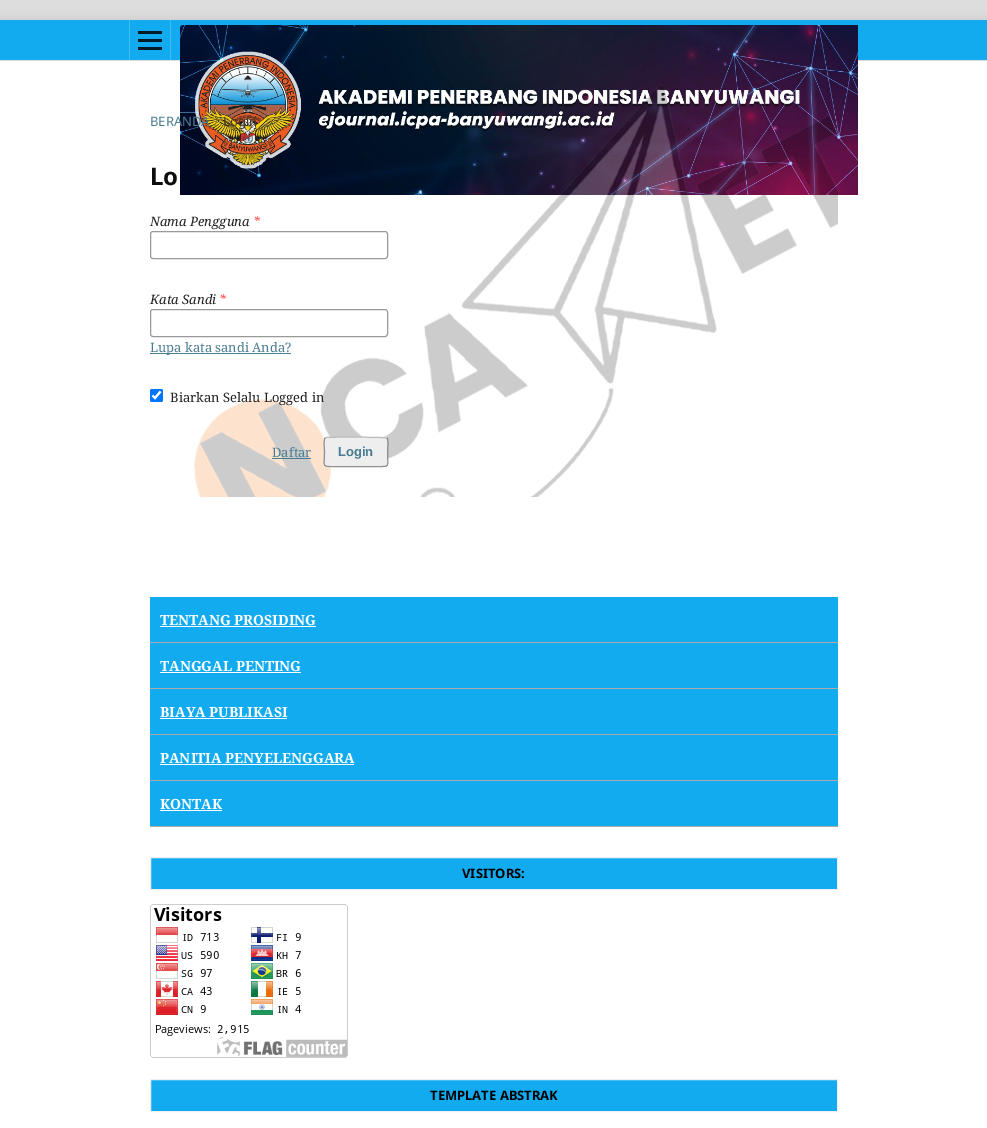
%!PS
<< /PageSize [987 1128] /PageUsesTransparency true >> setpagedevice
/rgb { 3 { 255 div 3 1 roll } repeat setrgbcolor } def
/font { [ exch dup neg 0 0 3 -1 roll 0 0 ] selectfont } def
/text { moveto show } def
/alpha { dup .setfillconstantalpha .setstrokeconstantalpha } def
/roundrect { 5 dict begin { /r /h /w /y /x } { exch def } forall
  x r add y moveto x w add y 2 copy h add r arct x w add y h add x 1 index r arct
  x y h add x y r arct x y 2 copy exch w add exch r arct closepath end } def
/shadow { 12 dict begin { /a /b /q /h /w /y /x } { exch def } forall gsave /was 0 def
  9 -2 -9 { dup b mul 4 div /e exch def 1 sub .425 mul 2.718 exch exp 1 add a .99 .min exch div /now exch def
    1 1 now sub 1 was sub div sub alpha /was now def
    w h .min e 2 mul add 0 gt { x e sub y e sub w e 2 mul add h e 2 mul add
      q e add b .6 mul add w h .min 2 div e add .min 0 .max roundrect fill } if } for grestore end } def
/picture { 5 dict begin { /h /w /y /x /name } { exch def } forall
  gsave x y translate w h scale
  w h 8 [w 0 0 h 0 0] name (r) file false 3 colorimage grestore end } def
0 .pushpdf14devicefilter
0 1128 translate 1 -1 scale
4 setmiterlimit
221 221 221 rgb
0 0 987 1128 rectfill
0 0 0 rgb
0 20 987 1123 0 5 0.1 shadow
255 255 255 rgb
0 61 987 1067 rectfill
19 171 239 rgb
0 20 987 40 rectfill
221 221 221 rgb
0 60 987 1 rectfill
66 188 242 rgb
129 20 1 40 rectfill
170 20 1 40 rectfill
3 27 38 rgb
138 47 24 3 rectfill
138 31 24 3 rectfill
138 39 24 3 rectfill
(img_01.rgb) 180 25 678 170 picture
(img_02.rgb) 194 84 644 413 picture
153 153 153 rgb
150.5 231.5 237 27 2.5 roundrect stroke
150.5 309.5 237 27 2.5 roundrect stroke
75 125 146 rgb
150 353 141 1 rectfill
0 117 255 rgb
150 389 13 13 2 roundrect fill
255 255 255 rgb
2.1 setlinewidth
152.5 395.5 moveto 2.5 2.5 rlineto 5.5 -6.5 rlineto stroke
75 125 146 rgb
272 458 39 1 rectfill
238 238 238 rgb
324 437 64 30 3 roundrect fill
187 187 187 rgb
1 setlinewidth
325 438 moveto 2 -0.5 rlineto 5 -0.5 58.5 -0.5 59.5 0.5 rcurveto 0.5 0 rlineto stroke
0.4 alpha
0 0 0 rgb
387 438 moveto 1.5 2 0.5 11.5 0.5 14 rcurveto 0 16 3.5 14.5 -12 14.5 rcurveto -39 0 rlineto -15.5 0 -12 1.5 -12 -14.5 rcurveto 0 -2.5 -1 -12 0.5 -14 rcurveto stroke
1 alpha
19 171 239 rgb
150 597 688 45 rectfill
170 170 170 rgb
150 642 688 1 rectfill
255 255 255 rgb
160 626 156 1 rectfill
19 171 239 rgb
150 643 688 45 rectfill
170 170 170 rgb
150 688 688 1 rectfill
255 255 255 rgb
160 672 141 1 rectfill
19 171 239 rgb
150 689 688 45 rectfill
170 170 170 rgb
150 734 688 1 rectfill
255 255 255 rgb
160 718 127 1 rectfill
19 171 239 rgb
150 735 688 45 rectfill
170 170 170 rgb
150 780 688 1 rectfill
255 255 255 rgb
160 764 194 1 rectfill
19 171 239 rgb
150 781 688 45 rectfill
170 170 170 rgb
150 826 688 1 rectfill
255 255 255 rgb
160 810 62 1 rectfill
19 171 239 rgb
150.5 857.5 moveto 687 0 rlineto 0 32 rlineto -687 0 rlineto closepath gsave fill grestore
236 239 245 rgb
stroke
(img_03.rgb) 150 904 198 154 picture
19 171 239 rgb
150.5 1079.5 moveto 687 0 rlineto 0 32 rlineto -687 0 rlineto closepath gsave fill grestore
236 239 245 rgb
stroke
/NotoSans-Regular 13 font
75 125 146 rgb
(BERANDA) 150 126 text
148 126 21 rgb
(/) 214 126 text
74 58 33 rgb
(Login) 223 126 text
/NotoSans-Bold 24 font
13 13 16 rgb
(Lo) 150 185 text
/NotoSerif-Italic 13 font
33 33 33 rgb
(Nama Pengguna) 150 226 text
255 64 64 rgb
(*) 253 226 text
33 33 33 rgb
(Kata Sandi) 150 304 text
255 64 64 rgb
(*) 219 304 text
/NotoSerif-Regular 13 font
75 125 146 rgb
(Lupa kata sandi Anda?) 150 352 text
33 33 33 rgb
(Biarkan Selalu Logged in) 170 402 text
75 125 146 rgb
(Daftar) 272 457 text
/LiberationSans-Bold 13 font
(Login) 338 456 text
/NotoSerif-Bold 14 font
255 255 255 rgb
(TENTANG PROSIDING) 160 625 text
(TANGGAL PENTING) 160 671 text
(BIAYA PUBLIKASI) 160 717 text
(PANITIA PENYELENGGARA) 160 763 text
(KONTAK) 160 809 text
/NotoSans-Bold 13 font
0 0 0 rgb
(VISITORS:) 462 878 text
(TEMPLATE ABSTRAK) 430 1100 text
.poppdf14devicefilter showpage
